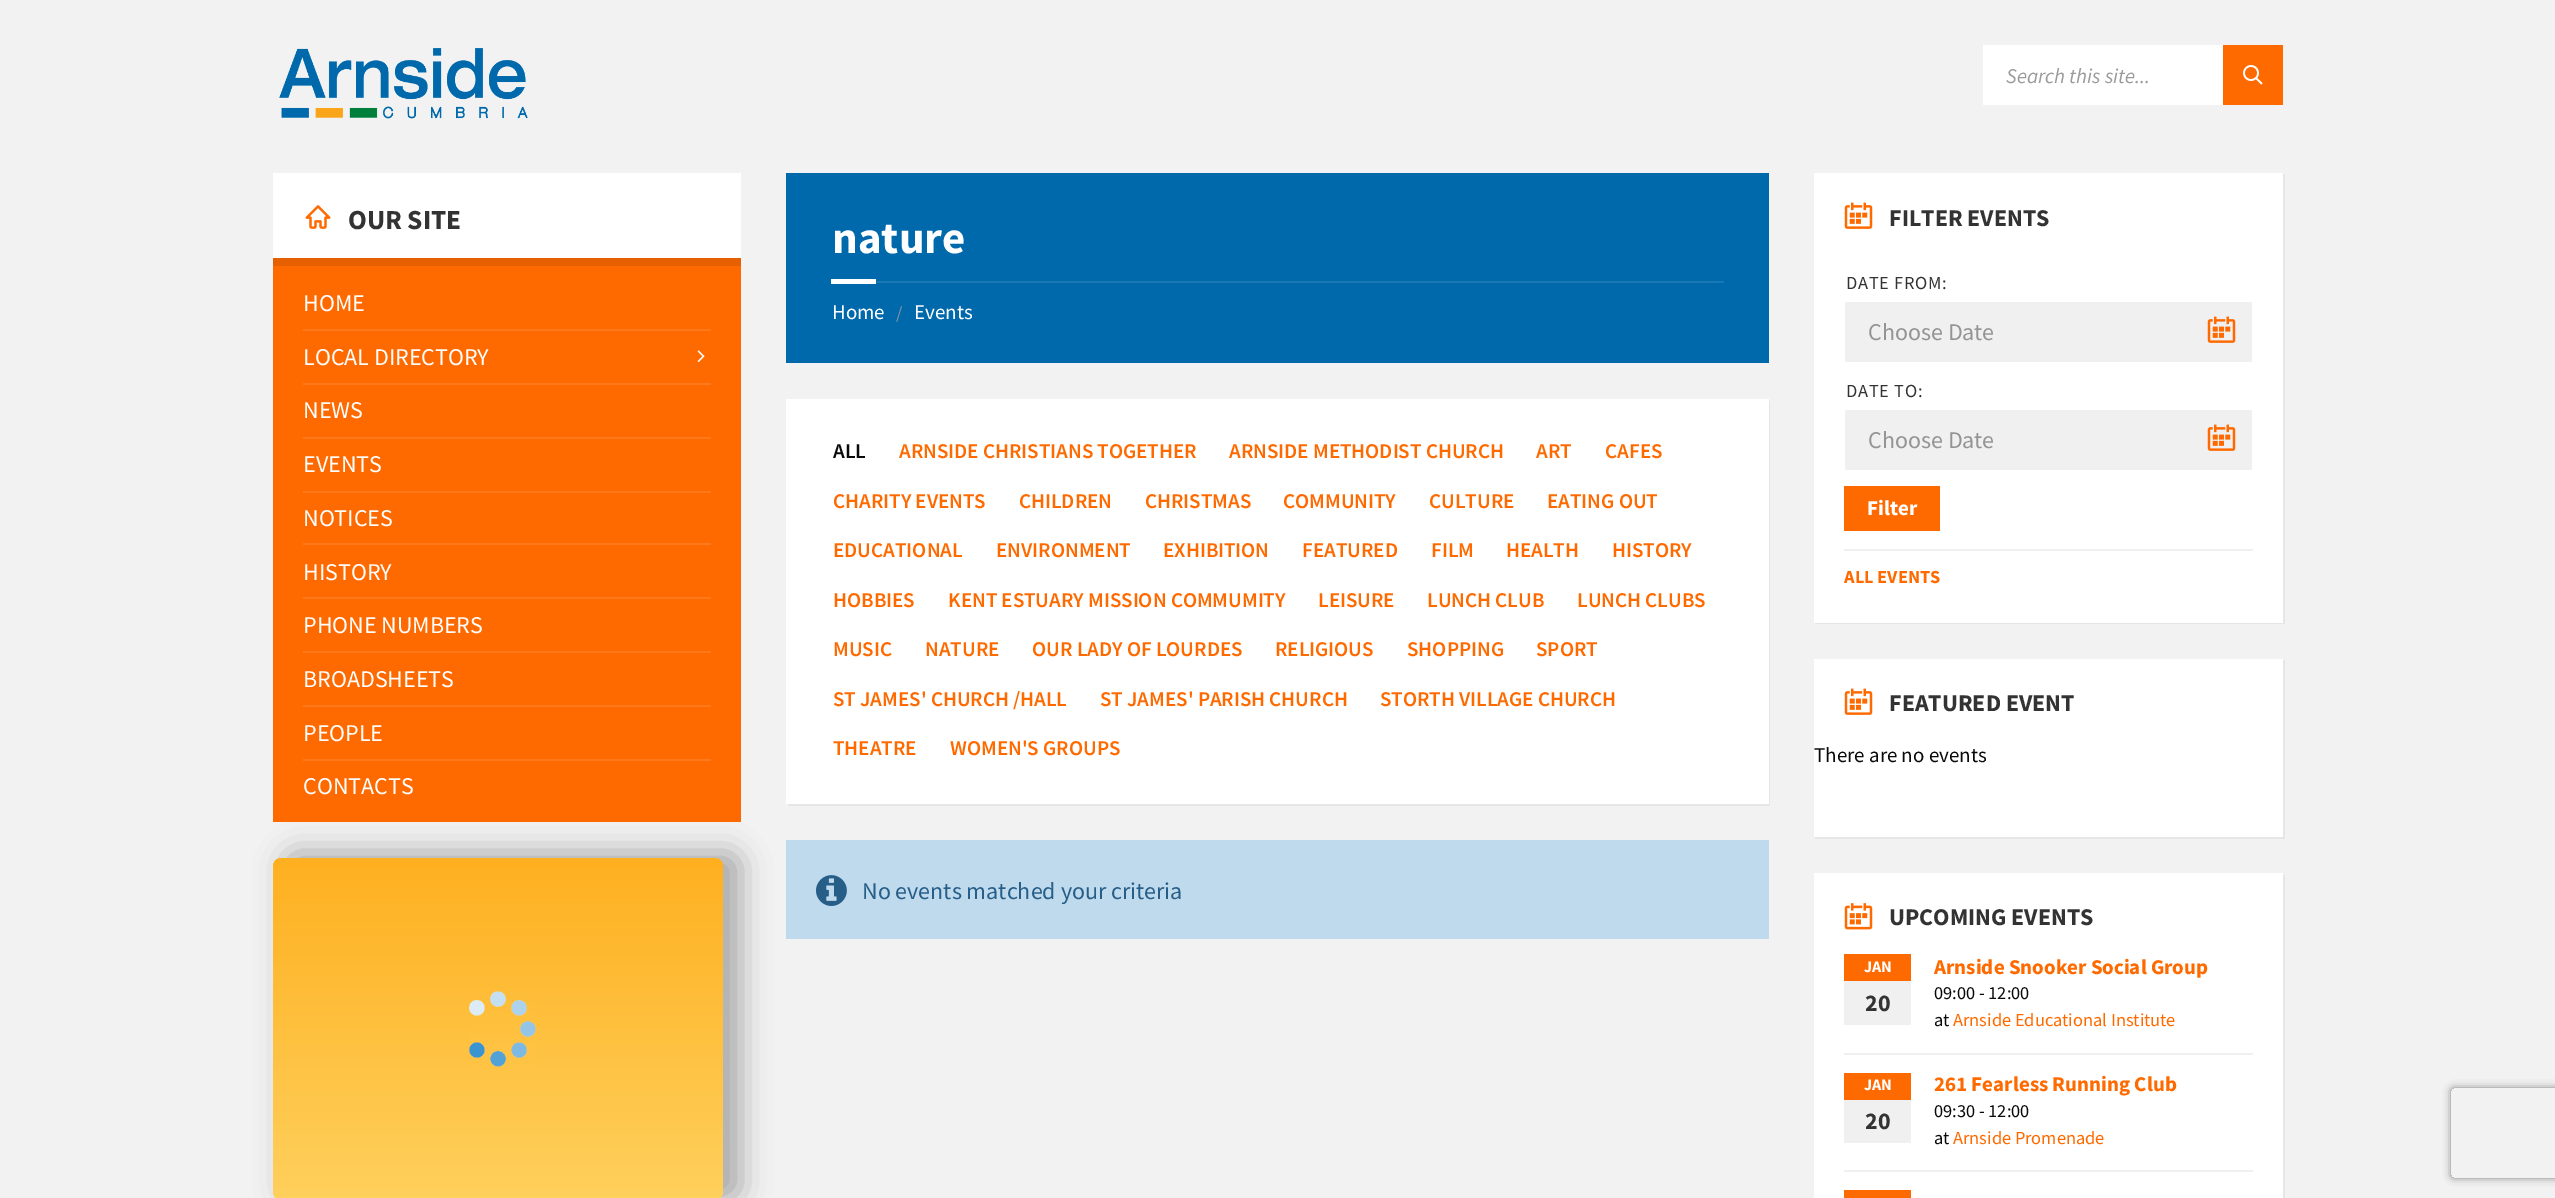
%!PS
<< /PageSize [2555 1198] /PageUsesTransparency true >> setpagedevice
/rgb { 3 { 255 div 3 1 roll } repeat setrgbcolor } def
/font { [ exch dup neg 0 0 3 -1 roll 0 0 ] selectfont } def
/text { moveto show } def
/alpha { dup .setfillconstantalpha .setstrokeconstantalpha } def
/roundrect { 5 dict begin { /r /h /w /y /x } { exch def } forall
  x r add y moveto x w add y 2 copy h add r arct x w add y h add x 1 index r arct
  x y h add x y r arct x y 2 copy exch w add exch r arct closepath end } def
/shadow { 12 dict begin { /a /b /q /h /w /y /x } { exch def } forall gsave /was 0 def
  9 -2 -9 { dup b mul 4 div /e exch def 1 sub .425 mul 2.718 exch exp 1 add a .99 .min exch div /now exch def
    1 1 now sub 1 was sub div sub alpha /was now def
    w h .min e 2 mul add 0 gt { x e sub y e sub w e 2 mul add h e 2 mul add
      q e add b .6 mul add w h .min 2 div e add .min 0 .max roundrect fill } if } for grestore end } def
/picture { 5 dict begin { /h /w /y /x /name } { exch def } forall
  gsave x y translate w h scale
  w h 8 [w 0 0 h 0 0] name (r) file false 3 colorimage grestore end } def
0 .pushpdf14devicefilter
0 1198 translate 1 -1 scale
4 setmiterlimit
242 242 242 rgb
0 0 2555 1198 rectfill
(img_01.rgb) 279 48 249 71 picture
255 255 255 rgb
1983 45 240 60 rectfill
255 106 0 rgb
2223 45 60 60 rectfill
(img_02.rgb) 2243 65 20 20 picture
255 255 255 rgb
273 173 468 85 rectfill
(img_03.rgb) 305 205 26 24 picture
255 106 0 rgb
273 266 468 556 rectfill
230 95 0 rgb
273 258 468 8 rectfill
255 121 26 rgb
303 329 408 2 rectfill
(img_04.rgb) 697 350 8 13 picture
303 383 408 2 rectfill
303 437 408 2 rectfill
303 491 408 2 rectfill
303 543 408 2 rectfill
303 597 408 2 rectfill
303 651 408 2 rectfill
303 705 408 2 rectfill
303 759 408 2 rectfill
192 218 237 rgb
786 840 983 99 rectfill
0 0 0 rgb
285 852 456 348 12 15 0.3 shadow
gsave 273 858 450 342 9 roundrect clip newpath
<< /ShadingType 2 /ColorSpace /DeviceRGB /Coords [498 858 498 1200] /Extend [true true] /Function << /FunctionType 2 /Domain [0 1] /C0 [0.996 0.69 0.125] /C1 [1 0.816 0.361] /N 1 >> >> shfill grestore
(img_05.rgb) 469 991 67 76 picture
0 105 172 rgb
786 173 983 190 rectfill
26 120 180 rgb
876 281 848 2 rectfill
255 255 255 rgb
831 279 45 5 rectfill
230 230 230 rgb
788 804 moveto 0 2 rlineto 982 0 rlineto 0 -405 rlineto -2 0 rlineto 0 403 rlineto closepath fill
255 255 255 rgb
786 399 983 405 rectfill
(img_06.rgb) 816 875 31 31 picture
230 230 230 rgb
1815 622 moveto 0 2 rlineto 470 0 rlineto 0 -450 rlineto -2 0 rlineto 0 448 rlineto closepath fill
255 255 255 rgb
1814 173 469 450 rectfill
(img_07.rgb) 1844 202 29 27 picture
240 240 240 rgb
1845 302 407 60 rectfill
(img_08.rgb) 2207 316 29 27 picture
1845 410 407 60 rectfill
(img_08.rgb) 2207 424 29 27 picture
255 106 0 rgb
1844 486 96 45 rectfill
240 240 240 rgb
1844 549 409 2 rectfill
230 230 230 rgb
1815 837 moveto 0 2 rlineto 470 0 rlineto 0 -179 rlineto -2 0 rlineto 0 177 rlineto closepath fill
255 255 255 rgb
1814 659 469 178 rectfill
(img_07.rgb) 1844 688 29 27 picture
230 230 230 rgb
1815 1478 moveto 0 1 rlineto 470 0 rlineto 0 -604 rlineto -2 0 rlineto 0 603 rlineto closepath fill
255 255 255 rgb
1814 873 469 325 rectfill
(img_09.rgb) 1844 903 29 27 picture
255 106 0 rgb
1844 954 67 27 rectfill
240 240 240 rgb
1844 981 67 44 rectfill
1844 1053 409 2 rectfill
255 106 0 rgb
1844 1073 67 27 rectfill
240 240 240 rgb
1844 1100 67 43 rectfill
1844 1170 409 2 rectfill
255 106 0 rgb
1844 1190 67 8 rectfill
gsave
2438 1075 moveto 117 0 rlineto 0 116 rlineto -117 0 rlineto closepath 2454 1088 moveto 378 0 rlineto 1.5 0 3 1.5 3 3 rcurveto 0 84 rlineto 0 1.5 -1.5 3 -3 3 rcurveto -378 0 rlineto -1.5 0 -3 -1.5 -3 -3 rcurveto 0 -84 rlineto 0 -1.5 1.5 -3 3 -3 rcurveto closepath eoclip newpath
128 128 128 rgb
2451 1088 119 90 3 4 1 shadow
grestore
/SourceSansPro-Italic 21 font
154 154 154 rgb
(Search this site...) 2006 83 text
/SourceSansPro-Bold 27.5 font
51 51 51 rgb
(OUR SITE) 348 229 text
/SourceSansPro-Regular 24 font
255 255 255 rgb
(HOME) 303 311 text
(LOCAL DIRECTORY) 303 365 text
(NEWS) 303 418 text
(EVENTS) 303 472 text
(NOTICES) 303 526 text
(HISTORY) 303 580 text
(PHONE NUMBERS) 303 633 text
(BROADSHEETS) 303 687 text
(PEOPLE) 303 741 text
(CONTACTS) 303 794 text
/SourceSansPro-Bold 45 font
(nature) 832 253 text
/SourceSansPro-Regular 21 font
(Home) 832 319 text
/SourceSansPro-Regular 18 font
138 148 155 rgb
(/) 896 319 text
/SourceSansPro-Regular 21 font
255 255 255 rgb
(Events) 914 319 text
/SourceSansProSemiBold-SemiBold 21 font
10 10 10 rgb
(ALL) 833 458 text
255 106 0 rgb
(ARNSIDE CHRISTIANS TOGETHER) 899 458 text
(ARNSIDE METHODIST CHURCH) 1229 458 text
(ART) 1536 458 text
(CAFES) 1605 458 text
(CHARITY EVENTS) 833 508 text
(CHILDREN) 1019 508 text
(CHRISTMAS) 1145 508 text
(COMMUNITY) 1283 508 text
(CULTURE) 1429 508 text
(EATING OUT) 1547 508 text
(EDUCATIONAL) 833 557 text
(ENVIRONMENT) 996 557 text
(EXHIBITION) 1163 557 text
(FEATURED) 1302 557 text
(FILM) 1431 557 text
(HEALTH) 1506 557 text
(HISTORY) 1612 557 text
(HOBBIES) 833 607 text
(KENT ESTUARY MISSION COMMUMITY) 948 607 text
(LEISURE) 1318 607 text
(LUNCH CLUB) 1427 607 text
(LUNCH CLUBS) 1577 607 text
(MUSIC) 833 656 text
(NATURE) 925 656 text
(OUR LADY OF LOURDES) 1032 656 text
(RELIGIOUS) 1275 656 text
(SHOPPING) 1407 656 text
(SPORT) 1536 656 text
(ST JAMES' CHURCH /HALL) 833 706 text
(ST JAMES' PARISH CHURCH) 1100 706 text
(STORTH VILLAGE CHURCH) 1380 706 text
(THEATRE) 833 755 text
(WOMEN'S GROUPS) 950 755 text
/SourceSansPro-Regular 24 font
38 94 136 rgb
(No events matched your criteria) 862 899 text
/SourceSansPro-Bold 24 font
51 51 51 rgb
(FILTER EVENTS) 1889 226 text
/SourceSansPro-Regular 18.4 font
1846 289 moveto 0.75 0 (DATE FROM:) ashow
/SourceSansPro-Regular 24 font
148 148 148 rgb
(Choose Date) 1868 340 text
/SourceSansPro-Regular 18.4 font
51 51 51 rgb
1846 397 moveto 0.75 0 (DATE TO:) ashow
/SourceSansPro-Regular 24 font
148 148 148 rgb
(Choose Date) 1868 448 text
/SourceSansPro-Bold 21 font
255 255 255 rgb
(Filter) 1867 515 text
/SourceSansPro-Bold 18.4 font
255 106 0 rgb
(ALL EVENTS) 1844 583 text
/SourceSansPro-Bold 24 font
51 51 51 rgb
(FEATURED EVENT) 1889 711 text
/SourceSansPro-Regular 21 font
10 10 10 rgb
(There are no events) 1814 762 text
/SourceSansPro-Bold 24 font
51 51 51 rgb
(UPCOMING EVENTS) 1889 925 text
/SourceSansPro-Bold 16 font
255 255 255 rgb
(JAN) 1864 972 text
/SourceSansPro-Bold 24 font
51 51 51 rgb
(20) 1865 1011 text
/SourceSansPro-Bold 21 font
255 106 0 rgb
(Arnside Snooker Social Group) 1934 974 text
/SourceSansPro-Regular 18.4 font
10 10 10 rgb
(09:00 - 12:00) 1934 999 text
(at) 1934 1026 text
255 106 0 rgb
(Arnside Educational Institute) 1953 1026 text
/SourceSansPro-Bold 16 font
255 255 255 rgb
(JAN) 1864 1090 text
/SourceSansPro-Bold 24 font
51 51 51 rgb
(20) 1865 1129 text
/SourceSansPro-Bold 21 font
255 106 0 rgb
(261 Fearless Running Club) 1934 1091 text
/SourceSansPro-Regular 18.4 font
10 10 10 rgb
(09:30 - 12:00) 1934 1117 text
(at) 1934 1144 text
255 106 0 rgb
(Arnside Promenade) 1953 1144 text
.poppdf14devicefilter showpage
